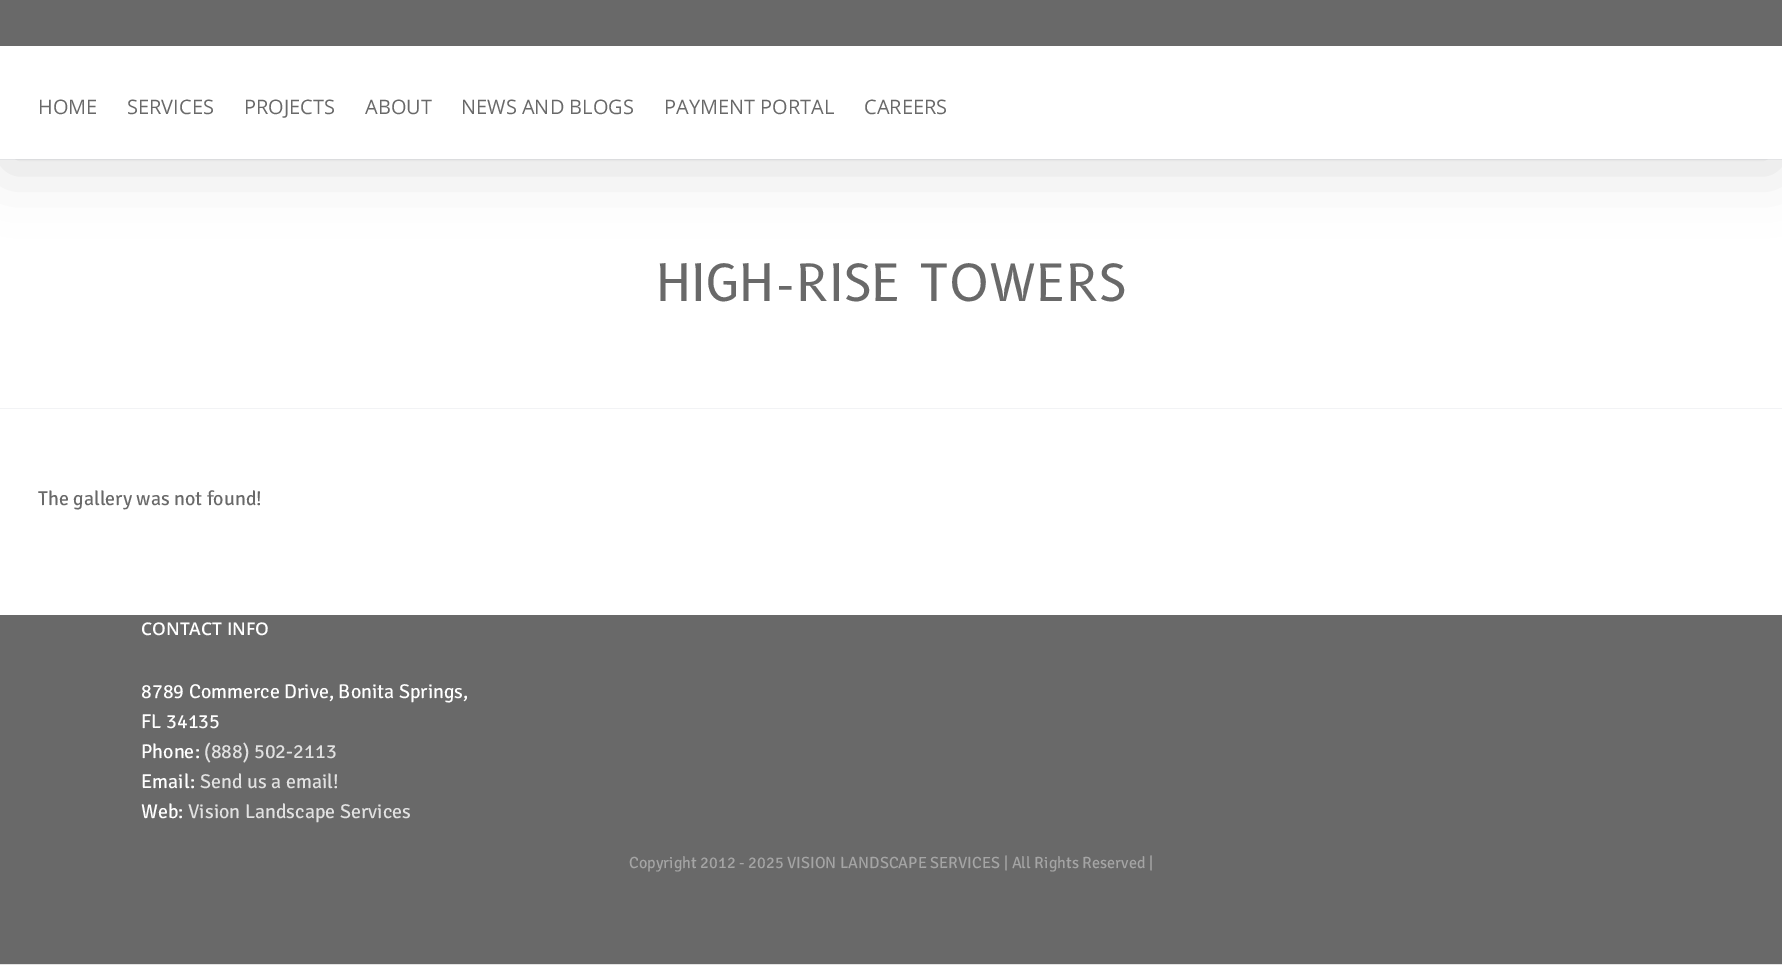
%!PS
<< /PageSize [1782 965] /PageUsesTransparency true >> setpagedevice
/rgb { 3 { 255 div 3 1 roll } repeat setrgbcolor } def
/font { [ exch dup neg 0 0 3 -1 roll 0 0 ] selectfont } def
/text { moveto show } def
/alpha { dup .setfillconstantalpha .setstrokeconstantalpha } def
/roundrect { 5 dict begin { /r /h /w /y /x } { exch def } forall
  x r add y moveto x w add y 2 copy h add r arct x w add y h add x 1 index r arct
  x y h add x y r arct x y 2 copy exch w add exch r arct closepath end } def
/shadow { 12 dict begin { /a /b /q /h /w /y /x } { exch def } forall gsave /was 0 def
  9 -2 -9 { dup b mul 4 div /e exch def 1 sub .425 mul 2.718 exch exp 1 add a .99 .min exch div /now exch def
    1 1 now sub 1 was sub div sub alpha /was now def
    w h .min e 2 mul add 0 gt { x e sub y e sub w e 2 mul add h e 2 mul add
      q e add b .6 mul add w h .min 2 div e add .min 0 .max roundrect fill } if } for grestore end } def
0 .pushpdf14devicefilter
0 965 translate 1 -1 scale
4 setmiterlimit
226 226 226 rgb
0 0 1782 965 rectfill
255 255 255 rgb
0 160 1782 455 rectfill
242 243 245 rgb
0 159 1782 1 rectfill
0 0 0 rgb
3 15 1777 154 0 31 0.14 shadow
105 105 105 rgb
0 0 1782 46 rectfill
255 255 255 rgb
0 46 1782 113 rectfill
242 243 245 rgb
0 408 1782 1 rectfill
105 105 105 rgb
0 615 1782 349 rectfill
/OpenSans-Regular 20 font
(HOME) 38 114 text
(SERVICES) 127 114 text
(PROJECTS) 244 114 text
(ABOUT) 365 114 text
(NEWS AND BLOGS) 461 114 text
(PAYMENT PORTAL) 664 114 text
(CAREERS) 864 114 text
/B612-Regular 50 font
(HIGH-RISE TOWERS) 656 301 text
/SignikaNegative-Regular 20 font
(The gallery was not found!) 38 505 text
/OpenSans-SemiBold 17.5 font
255 255 255 rgb
(CONTACT INFO) 141 635 text
/SignikaNegative-Regular 20 font
(8789 Commerce Drive, Bonita Springs,) 141 698 text
(FL 34135) 141 728 text
(Phone:) 141 758 text
225 225 225 rgb
(\(888\) 502-2113) 204 758 text
255 255 255 rgb
(Email:) 141 788 text
225 225 225 rgb
(Send us a email!) 200 788 text
255 255 255 rgb
(Web:) 141 818 text
225 225 225 rgb
(Vision Landscape Services) 188 818 text
/SignikaNegative-Regular 16.25 font
165 165 165 rgb
(Copyright 2012 - 2025 VISION LANDSCAPE SERVICES | All Rights Reserved |) 629 868 text
.poppdf14devicefilter showpage
